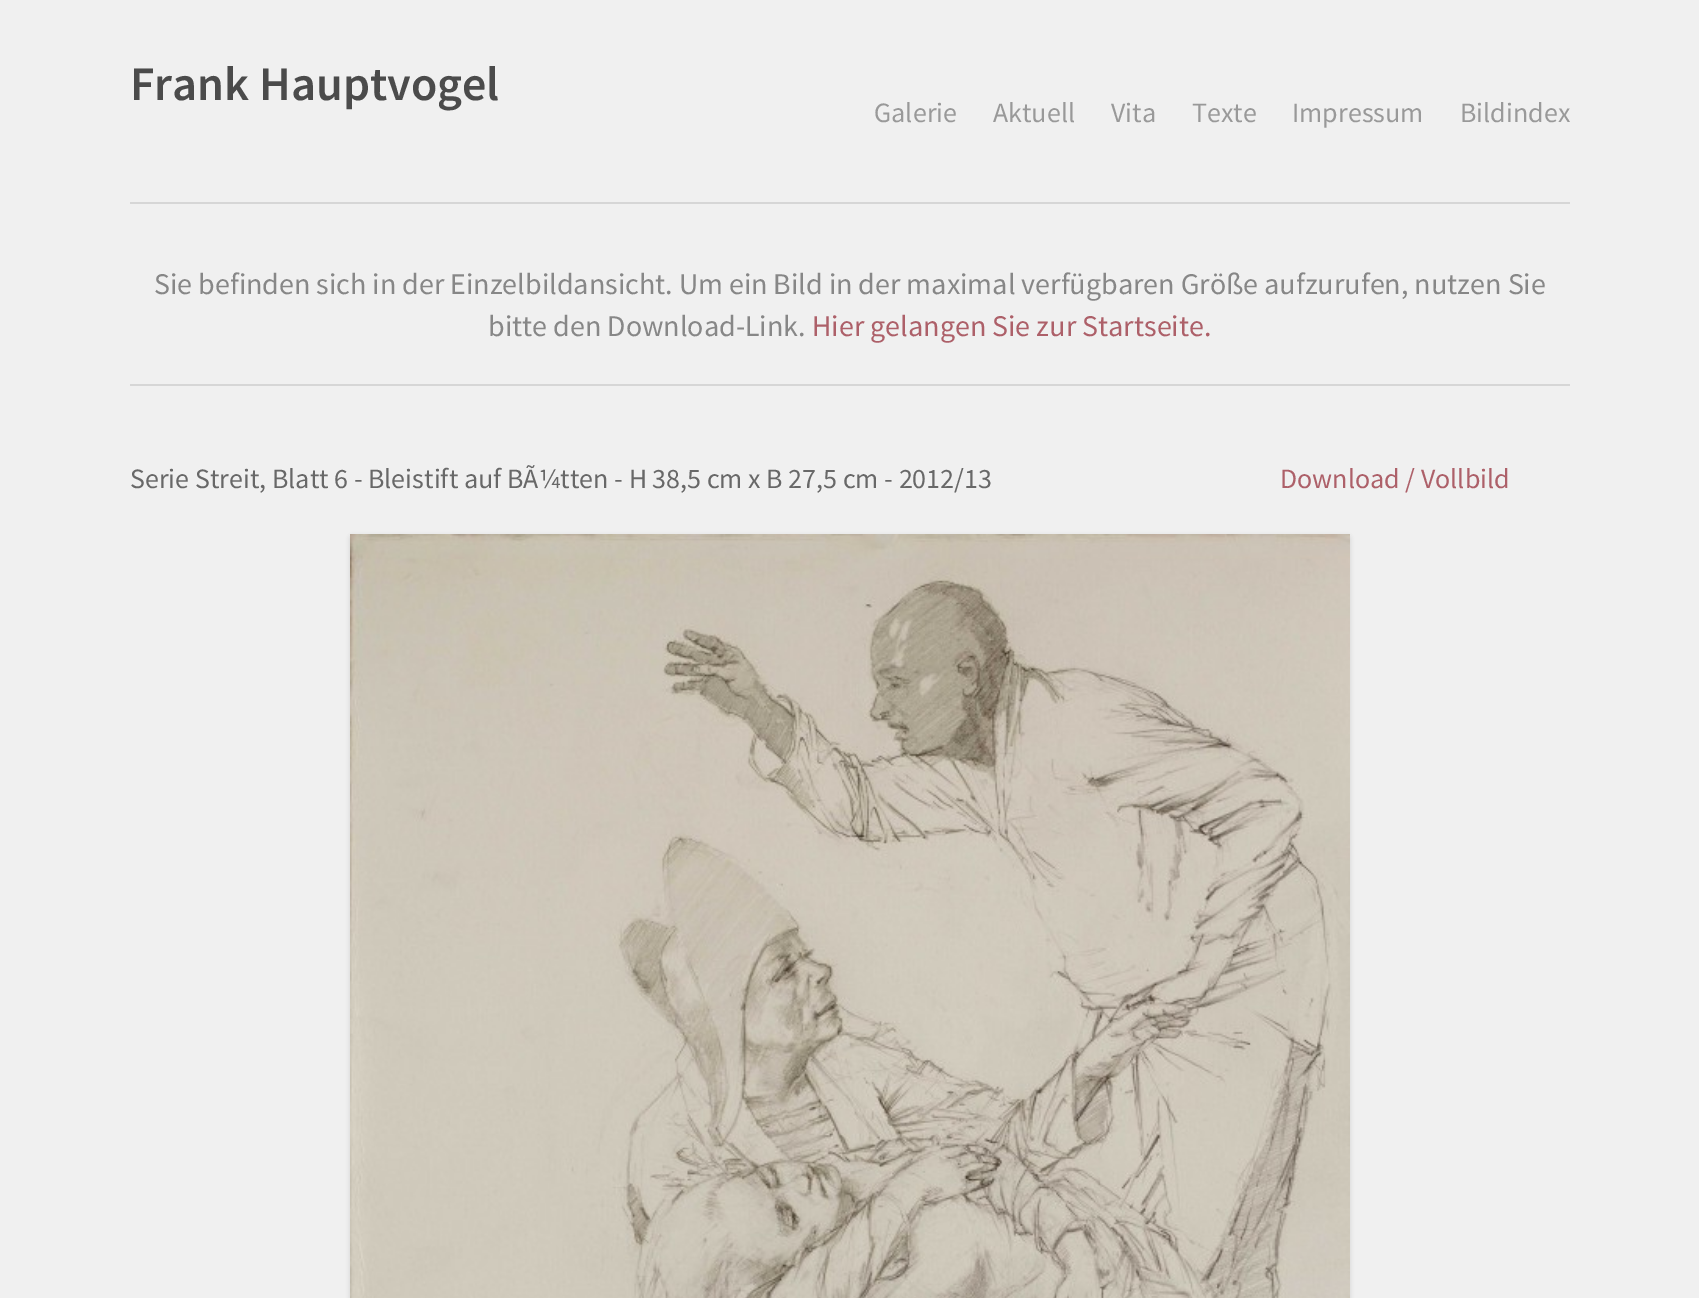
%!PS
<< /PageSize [1699 1298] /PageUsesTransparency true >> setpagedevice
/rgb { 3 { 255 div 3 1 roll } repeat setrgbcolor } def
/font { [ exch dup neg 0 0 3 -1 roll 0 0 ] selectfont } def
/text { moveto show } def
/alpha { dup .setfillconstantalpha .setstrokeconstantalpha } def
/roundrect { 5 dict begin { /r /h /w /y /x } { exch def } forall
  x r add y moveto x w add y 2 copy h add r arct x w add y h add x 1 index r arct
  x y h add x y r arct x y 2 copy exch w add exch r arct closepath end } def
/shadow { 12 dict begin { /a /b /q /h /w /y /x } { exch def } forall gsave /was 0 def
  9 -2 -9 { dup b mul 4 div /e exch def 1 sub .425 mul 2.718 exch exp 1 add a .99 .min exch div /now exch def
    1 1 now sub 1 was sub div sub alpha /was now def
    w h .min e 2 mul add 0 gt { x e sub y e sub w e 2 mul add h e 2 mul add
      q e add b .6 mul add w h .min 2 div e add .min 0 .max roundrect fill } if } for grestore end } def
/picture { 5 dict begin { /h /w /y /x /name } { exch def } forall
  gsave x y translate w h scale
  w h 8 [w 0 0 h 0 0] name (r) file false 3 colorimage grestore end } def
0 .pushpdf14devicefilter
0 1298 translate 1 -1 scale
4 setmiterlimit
240 240 240 rgb
0 0 1699 1298 rectfill
214 214 214 rgb
130 202 1440 2 rectfill
130 384 1440 2 rectfill
0 0 0 rgb
352 538 996 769 0 3 0.25 shadow
(img_01.rgb) 350 534 1000 764 picture
/SourceSansPro-SemiBold 48 font
75 75 75 rgb
(Frank Hauptvogel) 130 100 text
/SourceSansPro-Regular 28 font
153 153 153 rgb
(Galerie) 874 122 text
(Aktuell) 993 122 text
(Vita) 1111 122 text
(Texte) 1192 122 text
(Impressum) 1292 122 text
(Bildindex) 1460 122 text
/SourceSansPro-Regular 30 font
135 135 135 rgb
(Sie befinden sich in der Einzelbildansicht. Um ein Bild in der maximal verfügbaren Größe aufzurufen, nutzen Sie) 154 294 text
(bitte den Download-Link.) 488 336 text
173 96 105 rgb
(Hier gelangen Sie zur Startseite.) 812 336 text
/SourceSansPro-Regular 28 font
104 104 104 rgb
(Serie Streit, Blatt 6 - Bleistift auf BÃ¼tten - H 38,5 cm x B 27,5 cm - 2012/13) 130 488 text
173 96 105 rgb
(Download / Vollbild) 1280 488 text
.poppdf14devicefilter showpage
